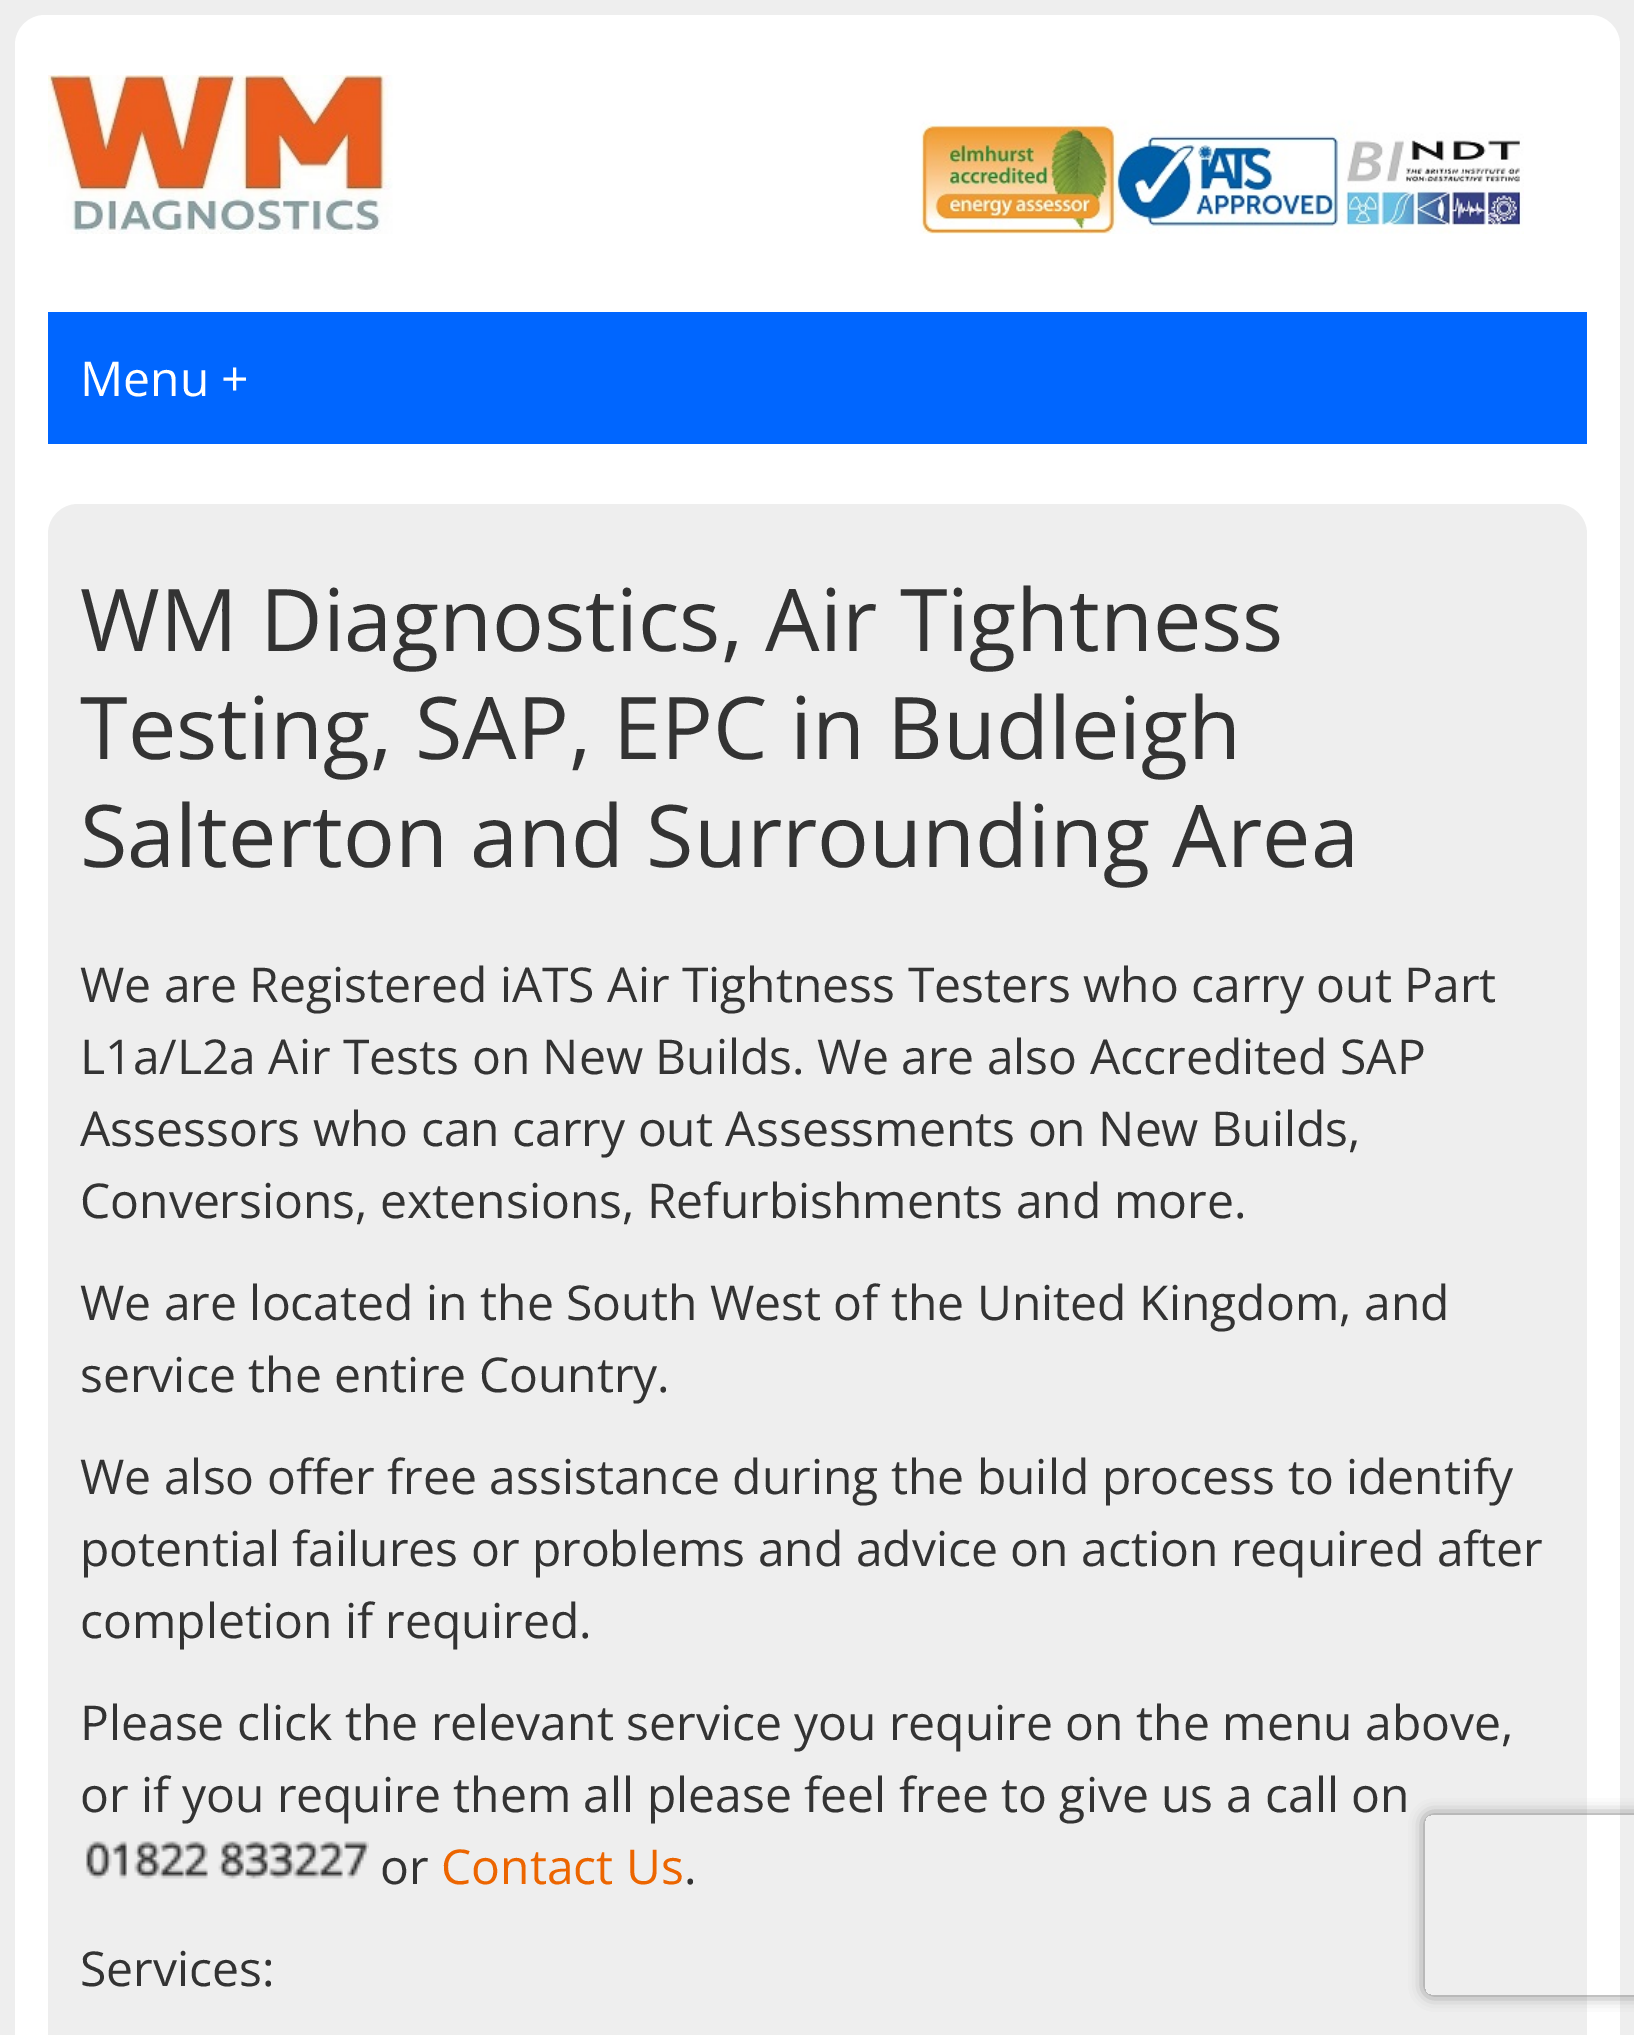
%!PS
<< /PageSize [1634 2035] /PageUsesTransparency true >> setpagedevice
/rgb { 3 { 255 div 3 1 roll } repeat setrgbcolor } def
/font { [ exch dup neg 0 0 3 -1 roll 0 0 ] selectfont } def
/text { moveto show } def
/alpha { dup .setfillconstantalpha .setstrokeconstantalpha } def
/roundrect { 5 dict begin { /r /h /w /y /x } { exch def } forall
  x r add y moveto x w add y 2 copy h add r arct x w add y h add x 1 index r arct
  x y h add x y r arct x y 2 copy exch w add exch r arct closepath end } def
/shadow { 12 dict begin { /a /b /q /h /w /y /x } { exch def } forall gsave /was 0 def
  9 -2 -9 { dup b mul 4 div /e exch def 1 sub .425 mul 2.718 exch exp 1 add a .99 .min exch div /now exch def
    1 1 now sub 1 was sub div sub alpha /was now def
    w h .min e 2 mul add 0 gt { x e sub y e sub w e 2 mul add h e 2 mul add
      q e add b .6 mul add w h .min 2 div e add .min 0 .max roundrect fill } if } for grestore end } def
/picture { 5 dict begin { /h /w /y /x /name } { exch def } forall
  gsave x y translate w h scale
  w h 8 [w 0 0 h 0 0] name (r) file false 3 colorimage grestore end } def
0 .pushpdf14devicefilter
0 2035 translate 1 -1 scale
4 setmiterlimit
238 238 238 rgb
0 0 1634 2035 rectfill
255 255 255 rgb
45 15 moveto 1545 0 rlineto 16.5 0 30 13.5 30 30 rcurveto 0 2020 rlineto -1605 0 rlineto 0 -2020 rlineto 0 -16.5 13.5 -30 30 -30 rcurveto closepath fill
(img_01.rgb) 48 75 1476 159 picture
0 102 255 rgb
48 312 1539 132 rectfill
238 238 238 rgb
78 504 moveto 1479 0 rlineto 16.5 0 30 13.5 30 30 rcurveto 0 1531 rlineto -1539 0 rlineto 0 -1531 rlineto 0 -16.5 13.5 -30 30 -30 rcurveto closepath fill
(img_02.rgb) 86 1841 283 38 picture
gsave
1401 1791 moveto 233 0 rlineto 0 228 rlineto -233 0 rlineto closepath 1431 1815 moveto 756 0 rlineto 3.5 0 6 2.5 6 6 rcurveto 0 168 rlineto 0 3.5 -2.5 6 -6 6 rcurveto -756 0 rlineto -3.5 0 -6 -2.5 -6 -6 rcurveto 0 -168 rlineto 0 -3.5 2.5 -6 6 -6 rcurveto closepath eoclip newpath
128 128 128 rgb
1425 1815 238 180 6 7.5 1 shadow
grestore
/OpenSans-Regular 48 font
255 255 255 rgb
(Menu +) 80 396 text
/OpenSans-Regular 86.4 font
51 51 51 rgb
(WM Diagnostics, Air Tightness) 80 651 text
(Testing, SAP, EPC in Budleigh) 80 759 text
(Salterton and Surrounding Area) 80 867 text
/OpenSans-Regular 48 font
(We are Registered iATS Air Tightness Testers who carry out Part) 80 1002 text
(L1a/L2a Air Tests on New Builds. We are also Accredited SAP) 80 1074 text
(Assessors who can carry out Assessments on New Builds,) 80 1146 text
(Conversions, extensions, Refurbishments and more.) 80 1218 text
(We are located in the South West of the United Kingdom, and) 80 1320 text
(service the entire Country.) 80 1392 text
(We also offer free assistance during the build process to identify) 80 1494 text
(potential failures or problems and advice on action required after) 80 1566 text
(completion if required.) 80 1638 text
(Please click the relevant service you require on the menu above,) 80 1740 text
(or if you require them all please feel free to give us a call on) 80 1812 text
(or) 380 1884 text
236 101 0 rgb
(Contact Us) 441 1884 text
51 51 51 rgb
(.) 684 1884 text
(Services:) 80 1986 text
.poppdf14devicefilter showpage
